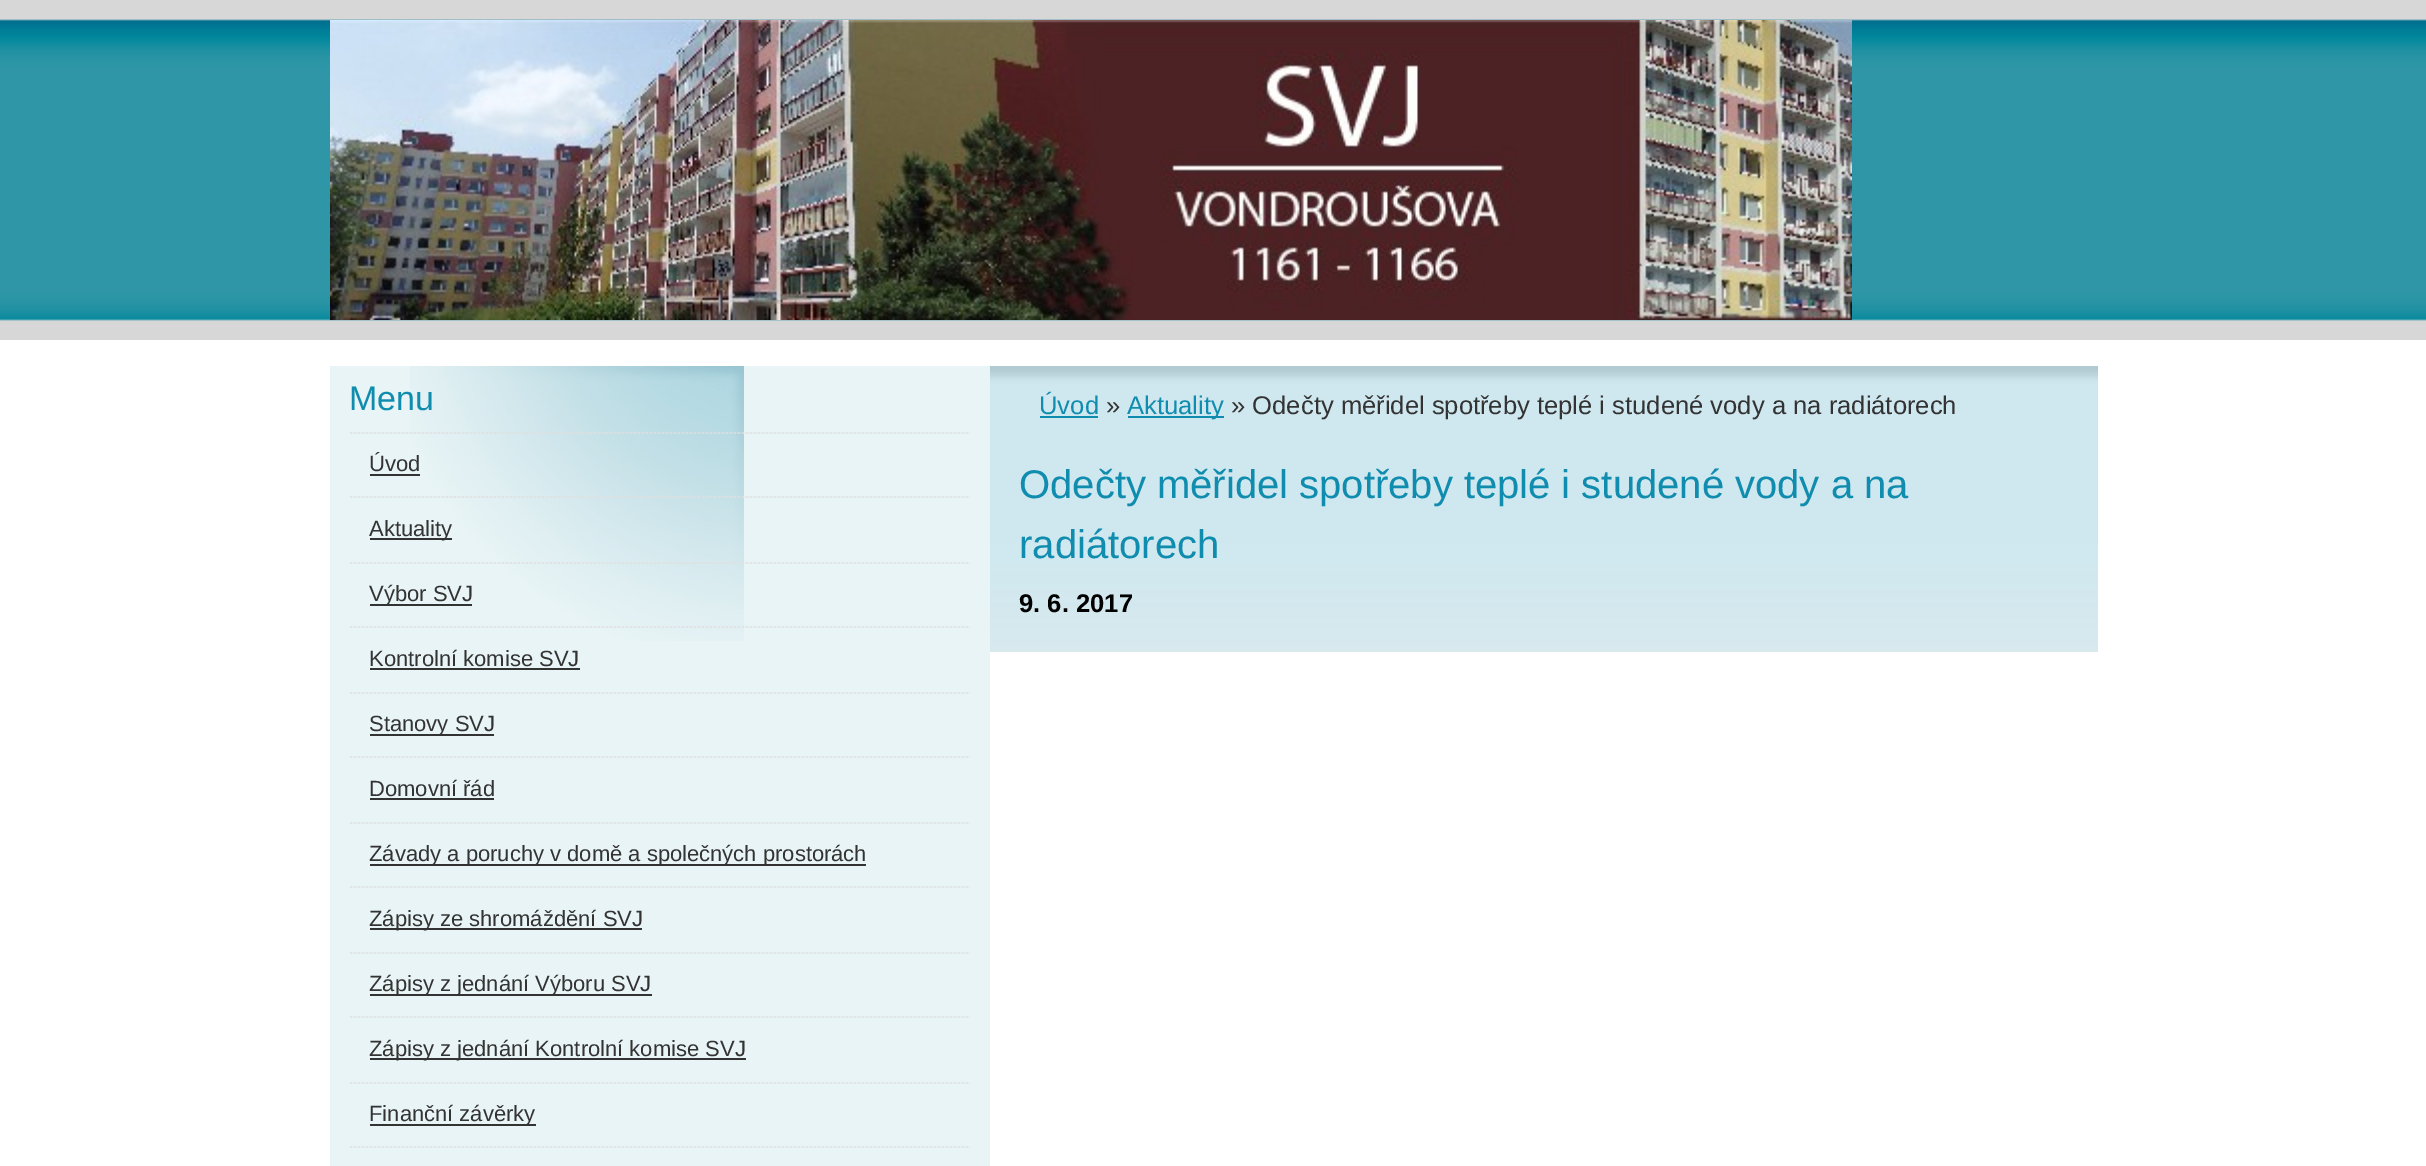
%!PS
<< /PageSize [2426 1166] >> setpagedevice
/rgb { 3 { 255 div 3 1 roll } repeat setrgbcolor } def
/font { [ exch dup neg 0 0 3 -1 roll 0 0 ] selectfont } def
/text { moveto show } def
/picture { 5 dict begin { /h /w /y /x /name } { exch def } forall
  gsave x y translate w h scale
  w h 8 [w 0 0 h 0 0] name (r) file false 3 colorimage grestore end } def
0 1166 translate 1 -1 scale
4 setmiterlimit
255 255 255 rgb
0 0 2426 1166 rectfill
(img_01.rgb) 0 0 2426 340 picture
(img_02.rgb) 330 20 1522 300 picture
232 244 246 rgb
330 366 660 800 rectfill
(img_03.rgb) 410 366 334 275 picture
(img_04.rgb) 350 432 620 2 picture
(img_05.rgb) 350 496 620 2 picture
51 51 51 rgb
370 474 50 2 rectfill
(img_06.rgb) 350 562 620 2 picture
370 538 82 2 rectfill
(img_07.rgb) 350 626 620 2 picture
370 604 102 2 rectfill
(img_08.rgb) 350 692 620 2 picture
370 668 210 2 rectfill
(img_08.rgb) 350 756 620 2 picture
370 734 124 2 rectfill
(img_08.rgb) 350 822 620 2 picture
370 798 124 2 rectfill
(img_08.rgb) 350 886 620 2 picture
370 864 496 2 rectfill
(img_08.rgb) 350 952 620 2 picture
370 928 272 2 rectfill
(img_08.rgb) 350 1016 620 2 picture
370 994 282 2 rectfill
(img_08.rgb) 350 1082 620 2 picture
370 1058 376 2 rectfill
(img_08.rgb) 350 1146 620 2 picture
370 1124 166 2 rectfill
(img_09.rgb) 990 366 1108 286 picture
15 140 174 rgb
1040 416 58 2 rectfill
1128 416 96 2 rectfill
/LiberationSans-Regular 34 font
(Menu) 349 410 text
/LiberationSans-Regular 22 font
51 51 51 rgb
(Úvod) 369 471 text
(Aktuality) 369 536 text
(Výbor SVJ) 369 601 text
(Kontrolní komise SVJ) 369 666 text
(Stanovy SVJ) 369 731 text
(Domovní řád) 369 796 text
(Závady a poruchy v domě a společných prostorách) 369 861 text
(Zápisy ze shromáždění SVJ) 369 926 text
(Zápisy z jednání Výboru SVJ) 369 991 text
(Zápisy z jednání Kontrolní komise SVJ) 369 1056 text
(Finanční závěrky) 369 1121 text
/LiberationSans-Regular 25.6 font
15 140 174 rgb
(Úvod) 1039 414 text
51 51 51 rgb
(») 1106 414 text
15 140 174 rgb
(Aktuality) 1127 414 text
51 51 51 rgb
(» Odečty měřidel spotřeby teplé i studené vody a na radiátorech) 1231 414 text
/LiberationSans-Regular 40 font
15 140 174 rgb
(Odečty měřidel spotřeby teplé i studené vody a na) 1019 498 text
(radiátorech) 1019 558 text
/LiberationSans-Bold 25.6 font
0 0 0 rgb
(9. 6. 2017) 1019 612 text
showpage
